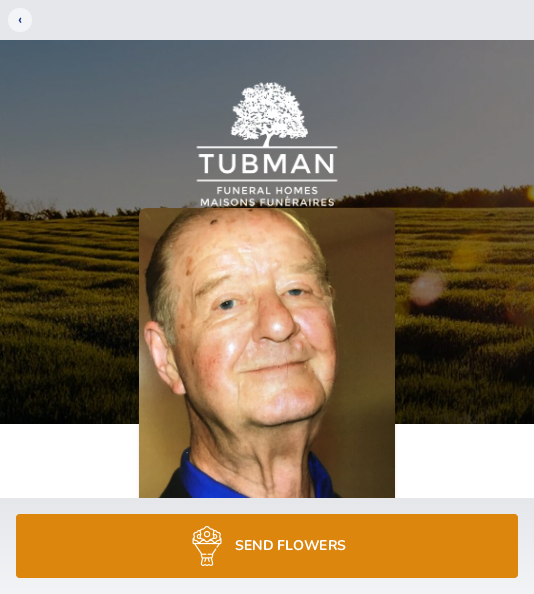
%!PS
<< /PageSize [534 594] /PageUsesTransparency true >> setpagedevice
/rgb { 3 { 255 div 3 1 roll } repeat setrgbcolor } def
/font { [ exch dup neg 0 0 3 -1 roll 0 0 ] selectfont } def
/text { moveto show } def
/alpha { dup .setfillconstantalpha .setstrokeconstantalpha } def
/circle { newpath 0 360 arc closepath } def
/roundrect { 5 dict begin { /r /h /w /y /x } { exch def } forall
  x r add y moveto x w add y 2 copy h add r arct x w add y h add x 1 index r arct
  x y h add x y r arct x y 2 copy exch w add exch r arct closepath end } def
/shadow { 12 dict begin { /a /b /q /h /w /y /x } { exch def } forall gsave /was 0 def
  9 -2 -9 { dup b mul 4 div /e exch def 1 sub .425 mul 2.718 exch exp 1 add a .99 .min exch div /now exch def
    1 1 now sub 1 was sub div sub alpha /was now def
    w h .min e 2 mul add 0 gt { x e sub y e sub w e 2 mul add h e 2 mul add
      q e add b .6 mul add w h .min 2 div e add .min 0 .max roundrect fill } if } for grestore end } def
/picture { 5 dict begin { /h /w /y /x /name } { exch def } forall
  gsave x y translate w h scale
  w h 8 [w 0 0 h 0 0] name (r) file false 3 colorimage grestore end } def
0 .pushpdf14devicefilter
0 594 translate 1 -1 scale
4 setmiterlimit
255 255 255 rgb
0 0 534 594 rectfill
229 231 235 rgb
0 0 534 40 rectfill
243 244 246 rgb
20 20 12 circle fill
(img_01.rgb) 0 40 534 384 picture
(img_02.rgb) 196 82 142 125 picture
0 0 0 rgb
139 209 256 320 8 1.5 0.1 shadow
(img_03.rgb) 139 208 256 290 picture
gsave 0 498 moveto 534 0 rlineto 0 96 rlineto -534 0 rlineto closepath clip newpath
<< /ShadingType 2 /ColorSpace /DeviceRGB /Coords [267 498 267 594] /Extend [true true] /Function << /FunctionType 2 /Domain [0 1] /C0 [0.898 0.906 0.922] /C1 [0.953 0.957 0.965] /N 1 >> >> shfill grestore
220 134 13 rgb
16 514 502 64 4 roundrect fill
(img_04.rgb) 192 526 30 40 picture
/Nunito-Bold 14 font
30 58 138 rgb
(‹) 18 24 text
255 255 255 rgb
(SEND FLOWERS) 235 550 text
.poppdf14devicefilter showpage
